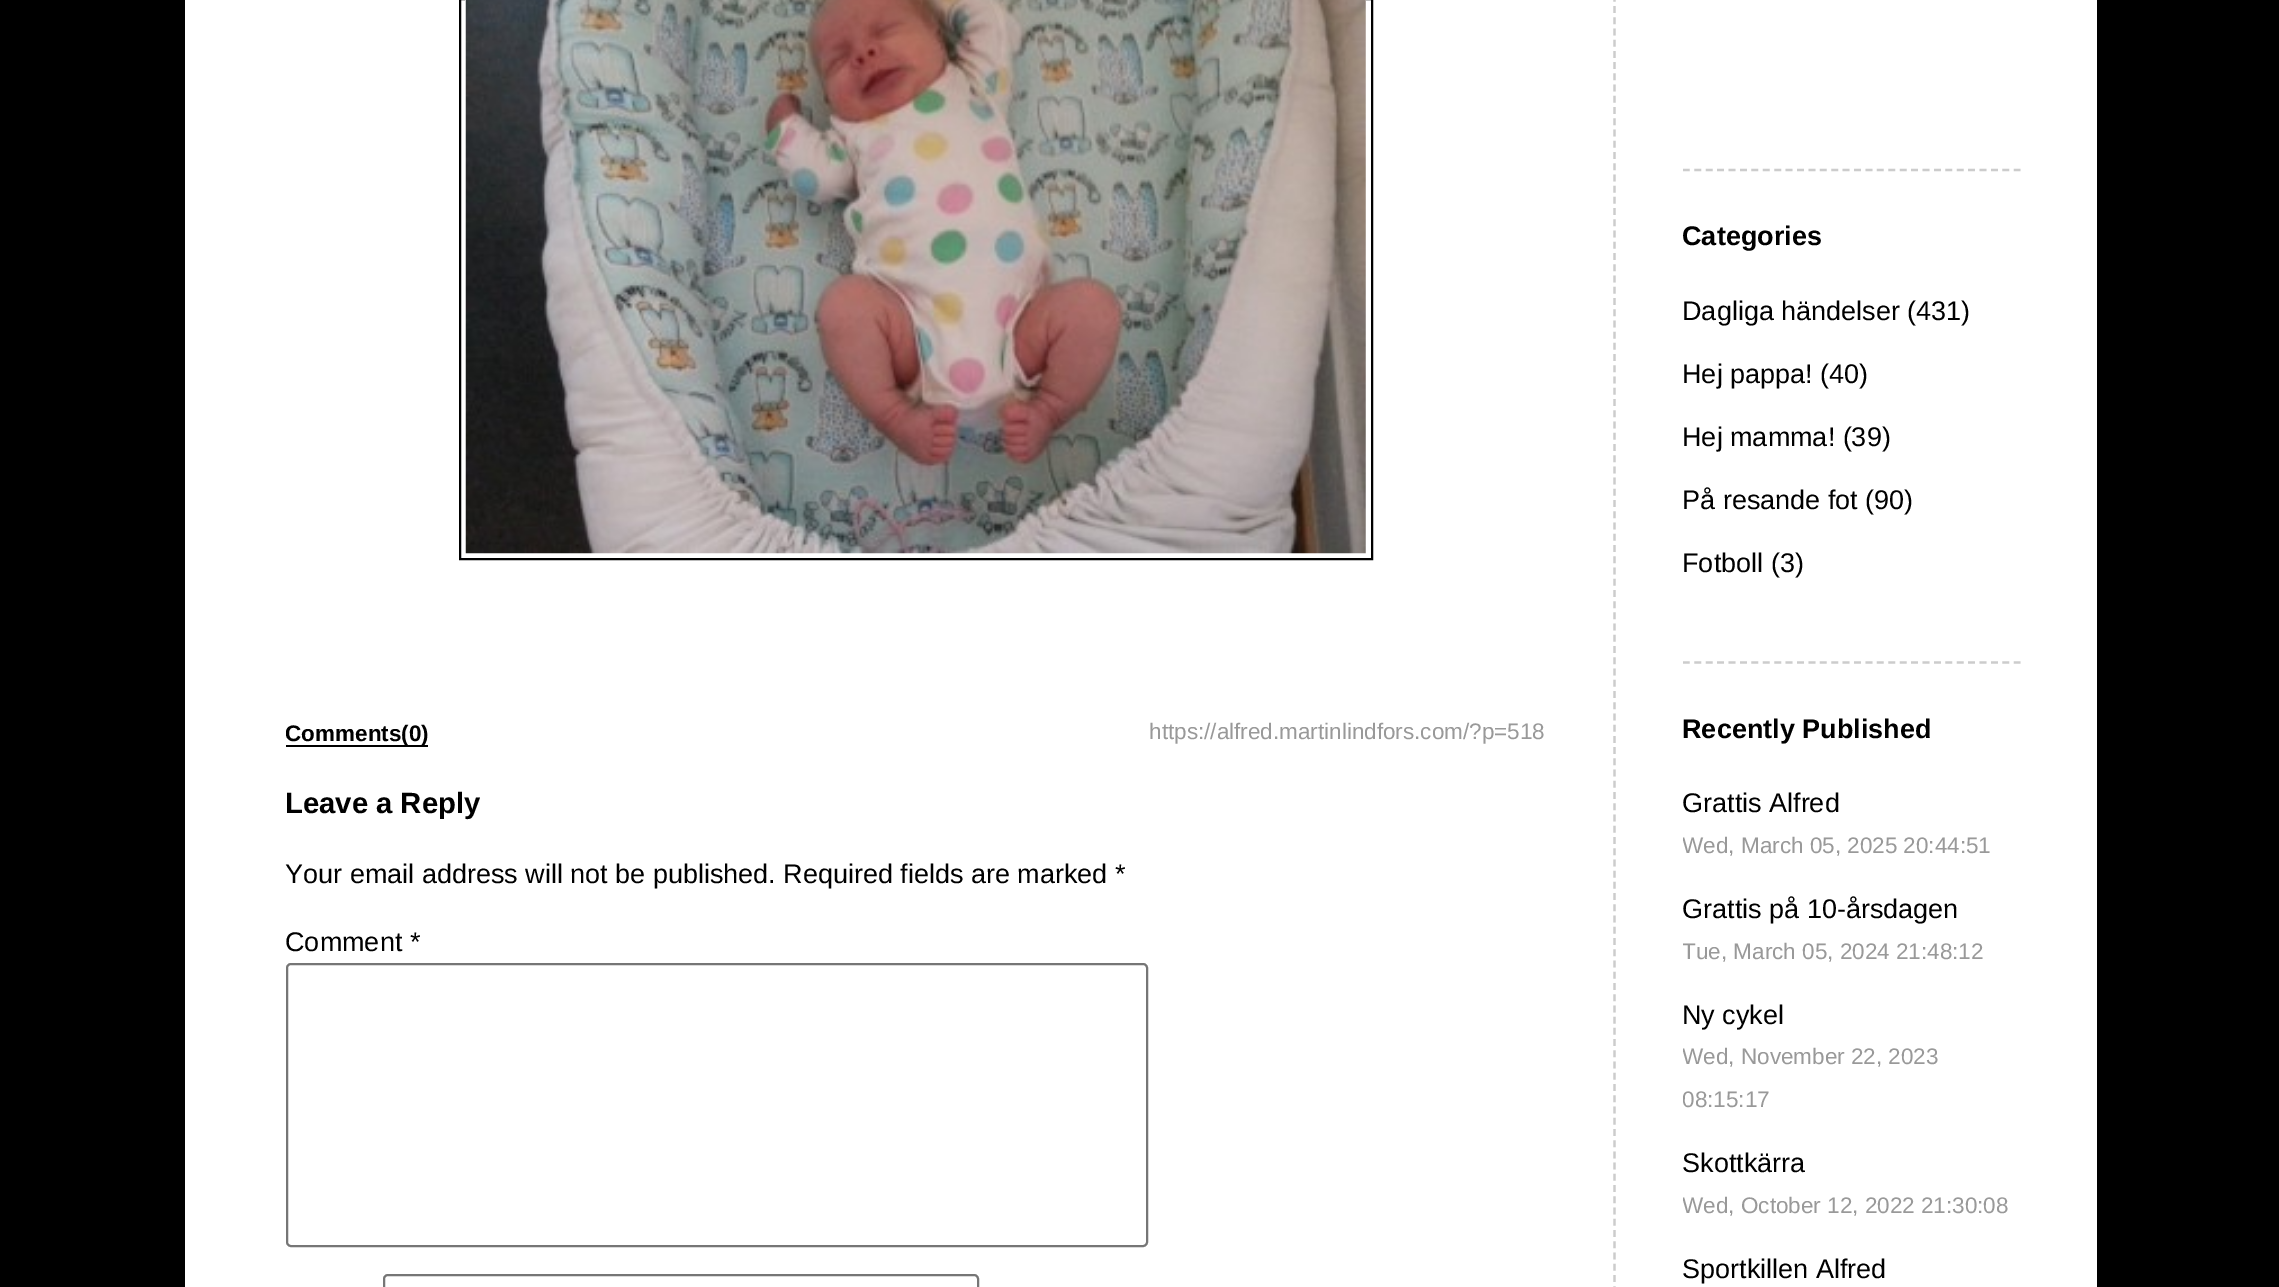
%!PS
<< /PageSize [2279 1287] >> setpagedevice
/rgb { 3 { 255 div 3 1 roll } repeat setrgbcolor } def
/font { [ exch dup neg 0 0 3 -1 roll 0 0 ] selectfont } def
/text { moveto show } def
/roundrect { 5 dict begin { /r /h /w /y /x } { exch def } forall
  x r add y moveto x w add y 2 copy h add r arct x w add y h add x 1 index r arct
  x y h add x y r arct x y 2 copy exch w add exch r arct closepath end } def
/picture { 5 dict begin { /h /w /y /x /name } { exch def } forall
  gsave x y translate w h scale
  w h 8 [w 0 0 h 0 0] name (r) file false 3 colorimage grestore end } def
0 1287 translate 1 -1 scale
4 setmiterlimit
0 0 0 rgb
0 0 2279 1287 rectfill
255 255 255 rgb
185 0 1912 1287 rectfill
0 0 0 rgb
2 setlinewidth
460 -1 912 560 rectstroke
(img_01.rgb) 465 0 901 554 picture
286 745 142 2 rectfill
118 118 118 rgb
287 964 860 282 4 roundrect stroke
384 1275 594 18 4 roundrect stroke
204 204 204 rgb
2.2 setlinewidth
[6.75 4.48] 0 setdash
1614.5 -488 moveto 0 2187 rlineto stroke
[6.75 4.66] 0 setdash
1683 170 moveto 337.5 0 rlineto stroke
1683 662.5 moveto 337.5 0 rlineto stroke
gsave
286 0 1260 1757 rectclip
/LiberationSans-Bold 22.5 font
0 0 0 rgb
(Comments\(0\)) 285 741 text
grestore
/LiberationSans-Regular 22.5 font
153 153 153 rgb
(https://alfred.martinlindfors.com/?p=518) 1149 739 text
/LiberationSans-Bold 29.25 font
0 0 0 rgb
(Leave a Reply) 285 813 text
/LiberationSans-Regular 27 font
(Your email address will not be published. Required fields are marked *) 285 883 text
(Comment *) 285 951 text
/LiberationSans-Bold 27 font
(Categories) 1682 245 text
/LiberationSans-Regular 27 font
(Dagliga händelser \(431\)) 1682 320 text
(Hej pappa! \(40\)) 1682 383 text
(Hej mamma! \(39\)) 1682 446 text
(På resande fot \(90\)) 1682 509 text
(Fotboll \(3\)) 1682 572 text
/LiberationSans-Bold 27 font
(Recently Published) 1682 738 text
/LiberationSans-Regular 27 font
(Grattis Alfred) 1682 812 text
gsave
1683 709 338 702 rectclip
/LiberationSans-Regular 22.5 font
153 153 153 rgb
(Wed, March 05, 2025 20:44:51) 1682 853 text
grestore
(Grattis på 10-årsdagen) 1682 918 text
gsave
1683 709 338 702 rectclip
/LiberationSans-Regular 22.5 font
153 153 153 rgb
(Tue, March 05, 2024 21:48:12) 1682 959 text
grestore
(Ny cykel) 1682 1024 text
gsave
1683 709 338 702 rectclip
/LiberationSans-Regular 22.5 font
153 153 153 rgb
(Wed, November 22, 2023) 1682 1064 text
(08:15:17) 1682 1107 text
grestore
(Skottkärra) 1682 1172 text
gsave
1683 709 338 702 rectclip
/LiberationSans-Regular 22.5 font
153 153 153 rgb
(Wed, October 12, 2022 21:30:08) 1682 1213 text
grestore
(Sportkillen Alfred) 1682 1278 text
showpage
